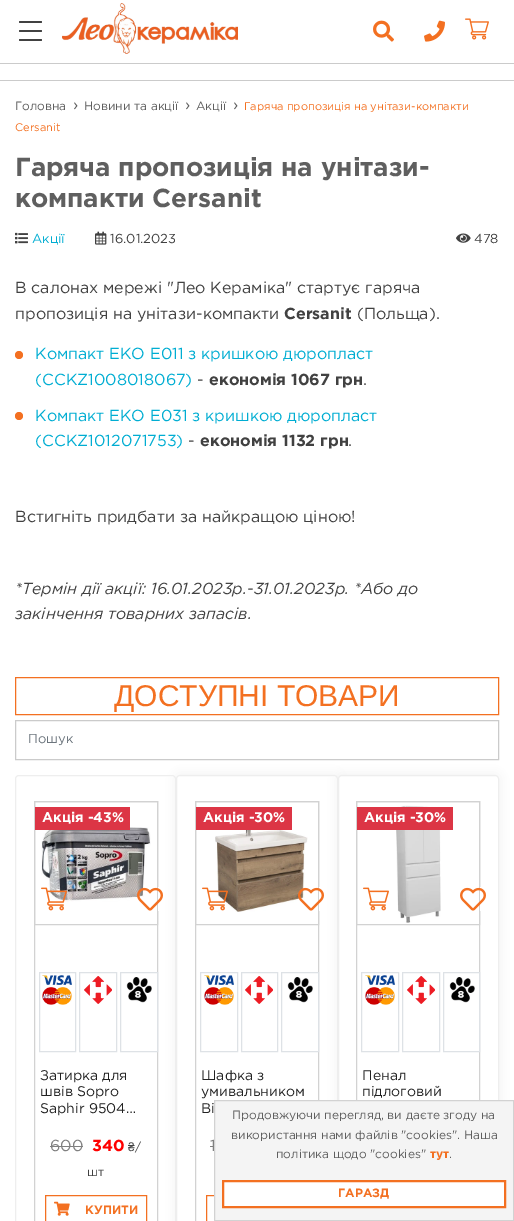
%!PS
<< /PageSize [514 1221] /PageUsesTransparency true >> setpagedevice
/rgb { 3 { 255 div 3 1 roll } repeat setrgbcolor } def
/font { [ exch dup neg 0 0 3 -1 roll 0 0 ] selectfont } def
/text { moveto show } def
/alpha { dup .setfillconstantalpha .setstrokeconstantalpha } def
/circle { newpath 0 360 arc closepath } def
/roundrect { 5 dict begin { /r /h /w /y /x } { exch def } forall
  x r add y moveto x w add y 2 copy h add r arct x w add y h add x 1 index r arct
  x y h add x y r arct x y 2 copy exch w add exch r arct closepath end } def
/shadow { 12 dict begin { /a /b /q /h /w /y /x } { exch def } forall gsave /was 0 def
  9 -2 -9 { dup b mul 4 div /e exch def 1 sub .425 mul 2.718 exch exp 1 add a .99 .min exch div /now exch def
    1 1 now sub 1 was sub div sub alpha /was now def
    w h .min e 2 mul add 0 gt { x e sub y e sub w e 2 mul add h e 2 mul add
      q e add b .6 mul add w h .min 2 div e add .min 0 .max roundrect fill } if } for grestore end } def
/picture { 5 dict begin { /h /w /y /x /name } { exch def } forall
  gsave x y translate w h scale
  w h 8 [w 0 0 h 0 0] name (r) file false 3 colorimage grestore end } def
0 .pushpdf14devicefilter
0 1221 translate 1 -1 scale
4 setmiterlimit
255 255 255 rgb
0 0 514 1221 rectfill
203 203 203 rgb
0 63 514 1 rectfill
65 65 65 rgb
19 21 23 2 1 roundrect fill
19 30 23 2 1 roundrect fill
19 39 23 2 1 roundrect fill
(img_01.rgb) 62 3 176 51 picture
(img_02.rgb) 373 20 21 22 picture
(img_03.rgb) 424 20 21 22 picture
(img_04.rgb) 465 18 24 22 picture
203 203 203 rgb
0 80 514 1 rectfill
(img_05.rgb) 15 232 13 12 picture
(img_06.rgb) 95 231 12 14 picture
(img_07.rgb) 456 233 15 10 picture
243 112 33 rgb
19 355 4 circle fill
19 416 4 circle fill
15.5 677.5 483 37 rectstroke
203 203 203 rgb
15.5 720.5 483 39 rectstroke
238 238 238 rgb
15.5 775.5 160 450 3.5 roundrect stroke
210 210 210 rgb
34.5 801.5 123 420 rectstroke
(img_08.rgb) 41 826 110 76 picture
34.5 801.5 123 123 rectstroke
220 53 69 rgb
35 807 95 23 rectfill
(img_09.rgb) 41 887 26 24 picture
(img_10.rgb) 137 887 26 24 picture
222 226 230 rgb
39.5 972.5 36 79 rectstroke
(img_11.rgb) 42 975 30 30 picture
79.5 972.5 37 79 rectstroke
(img_12.rgb) 84 976 28 28 picture
120.5 972.5 37 79 rectstroke
(img_13.rgb) 126 977 26 26 picture
128 128 128 rgb
50 1146 33 1 rectfill
243 112 33 rgb
45.5 1195.5 101 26 rectstroke
(img_14.rgb) 54 1201 16 15 picture
238 238 238 rgb
176 775 162 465 4 5 1 shadow
255 255 255 rgb
176.5 775.5 161 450 3.5 roundrect gsave fill grestore
238 238 238 rgb
stroke
210 210 210 rgb
195.5 801.5 123 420 rectstroke
(img_15.rgb) 215 818 93 94 picture
195.5 801.5 123 123 rectstroke
220 53 69 rgb
196 807 96 23 rectfill
(img_16.rgb) 202 887 26 24 picture
(img_17.rgb) 298 887 26 24 picture
222 226 230 rgb
200.5 972.5 37 79 rectstroke
(img_11.rgb) 204 975 30 30 picture
241.5 972.5 36 79 rectstroke
(img_12.rgb) 245 976 28 28 picture
281.5 972.5 37 79 rectstroke
(img_13.rgb) 287 977 26 26 picture
128 128 128 rgb
210 1146 4 1 rectfill
243 112 33 rgb
206.5 1195.5 101 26 rectstroke
238 238 238 rgb
338 775 161 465 4 5 1 shadow
255 255 255 rgb
338.5 775.5 160 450 3.5 roundrect gsave fill grestore
238 238 238 rgb
stroke
210 210 210 rgb
356.5 801.5 123 419 rectstroke
(img_18.rgb) 395 805 46 118 picture
356.5 801.5 123 123 rectstroke
220 53 69 rgb
357 807 96 23 rectfill
(img_19.rgb) 363 887 26 24 picture
(img_20.rgb) 460 887 26 24 picture
222 226 230 rgb
361.5 972.5 37 79 rectstroke
(img_11.rgb) 365 975 30 30 picture
402.5 972.5 37 79 rectstroke
(img_12.rgb) 407 976 28 28 picture
443.5 972.5 36 79 rectstroke
(img_13.rgb) 449 977 26 26 picture
/Gotham-Regular 12 font
95 95 95 rgb
(Головна) 15 110 text
/Gotham-Regular 16 font
(›) 73 110 text
/Gotham-Regular 12 font
(Новини та акції) 84 110 text
/Gotham-Regular 16 font
(›) 185 110 text
/Gotham-Regular 12 font
(Акції) 196 110 text
/Gotham-Regular 16 font
(›) 233 110 text
/Gotham-Regular 11 font
243 112 33 rgb
(Гаряча пропозиція на унітази-компакти) 244 110 text
(Cersanit) 15 131 text
/Gotham-Bold 26 font
95 95 95 rgb
(Гаряча пропозиція на унітази-) 15 176 text
(компакти Cersanit) 15 207 text
/Gotham-Regular 13 font
0 173 210 rgb
(Акції) 32 243 text
65 65 65 rgb
(16.01.2023) 110 243 text
(478) 474 243 text
/Gotham-Regular 16 font
(В салонах мережі "Лео Кераміка" стартує гаряча) 15 293 text
(пропозиція на унітази-компакти) 15 319 text
/Gotham-Bold 16 font
(Cersanit) 284 319 text
/Gotham-Regular 16 font
(\(Польща\).) 357 319 text
0 173 210 rgb
(Компакт EKO Е011 з кришкою дюропласт) 35 359 text
(\(CCKZ1008018067\)) 35 385 text
65 65 65 rgb
(-) 197 385 text
/Gotham-Bold 16 font
(економія 1067 грн) 209 385 text
/Gotham-Regular 16 font
(.) 363 385 text
0 173 210 rgb
(Компакт EKO Е031 з кришкою дюропласт) 35 421 text
(\(CCKZ1012071753\)) 35 446 text
65 65 65 rgb
(-) 188 446 text
/Gotham-Bold 16 font
(економія 1132 грн) 200 446 text
/Gotham-Regular 16 font
(.) 348 446 text
(Встигніть придбати за найкращою ціною!) 15 522 text
/Gotham-Italic 16 font
(*Термін дії акції: 16.01.2023р.-31.01.2023р. *Або до) 15 594 text
(закінчення товарних запасів.) 15 619 text
/LiberationSans-Regular 30 font
243 112 33 rgb
(ДОСТУПНІ ТОВАРИ) 114 706 text
gsave
28 734 458 12 rectclip
/Gotham-Regular 13 font
108 117 125 rgb
(Пошук) 28 743 text
grestore
/Gotham-Bold 14 font
255 255 255 rgb
(Акція -43%) 42 822 text
/Gotham-Regular 14 font
34 34 34 rgb
(Затирка для) 40 1080 text
(швів Sopro) 40 1096 text
(Saphir 9504…) 40 1113 text
/Gotham-Regular 16 font
128 128 128 rgb
(600) 50 1151 text
/Gotham-Bold 16 font
255 0 0 rgb
(340) 92 1151 text
/LiberationSans-Regular 12 font
65 65 65 rgb
(₴) 128 1151 text
/Gotham-Regular 12 font
(/) 135 1151 text
(шт) 87 1176 text
/Gotham-Bold 12 font
243 112 33 rgb
(КУПИТИ) 85 1214 text
/Gotham-Bold 14 font
255 255 255 rgb
(Акція -30%) 203 822 text
/Gotham-Regular 14 font
34 34 34 rgb
(Шафка з) 201 1080 text
(умивальником) 201 1096 text
(Ві) 201 1113 text
/Gotham-Regular 16 font
128 128 128 rgb
(1) 210 1151 text
/Gotham-Bold 14 font
255 255 255 rgb
(Акція -30%) 364 822 text
/Gotham-Regular 14 font
34 34 34 rgb
(Пенал) 362 1080 text
(підлоговий) 362 1096 text
244 244 244 rgb
214.5 1100.5 moveto 299 0 rlineto 0 120 rlineto -299 0 rlineto closepath gsave fill grestore
210 210 210 rgb
stroke
/Gotham-Regular 12 font
95 95 95 rgb
(Продовжуючи перегляд, ви даєте згоду на) 232 1119 text
(використання нами файлів "cookies". Наша) 231 1139 text
(політика щодо "cookies") 276 1158 text
/Gotham-Bold 12 font
243 112 33 rgb
(тут) 430 1158 text
/Gotham-Regular 12 font
95 95 95 rgb
(.) 449 1158 text
255 255 255 rgb
223 1181 moveto 282 0 rlineto 0 26 rlineto -282 0 rlineto closepath gsave fill grestore
243 112 33 rgb
2 setlinewidth
stroke
/Gotham-Bold 12 font
(ГАРАЗД) 338 1197 text
.poppdf14devicefilter showpage
